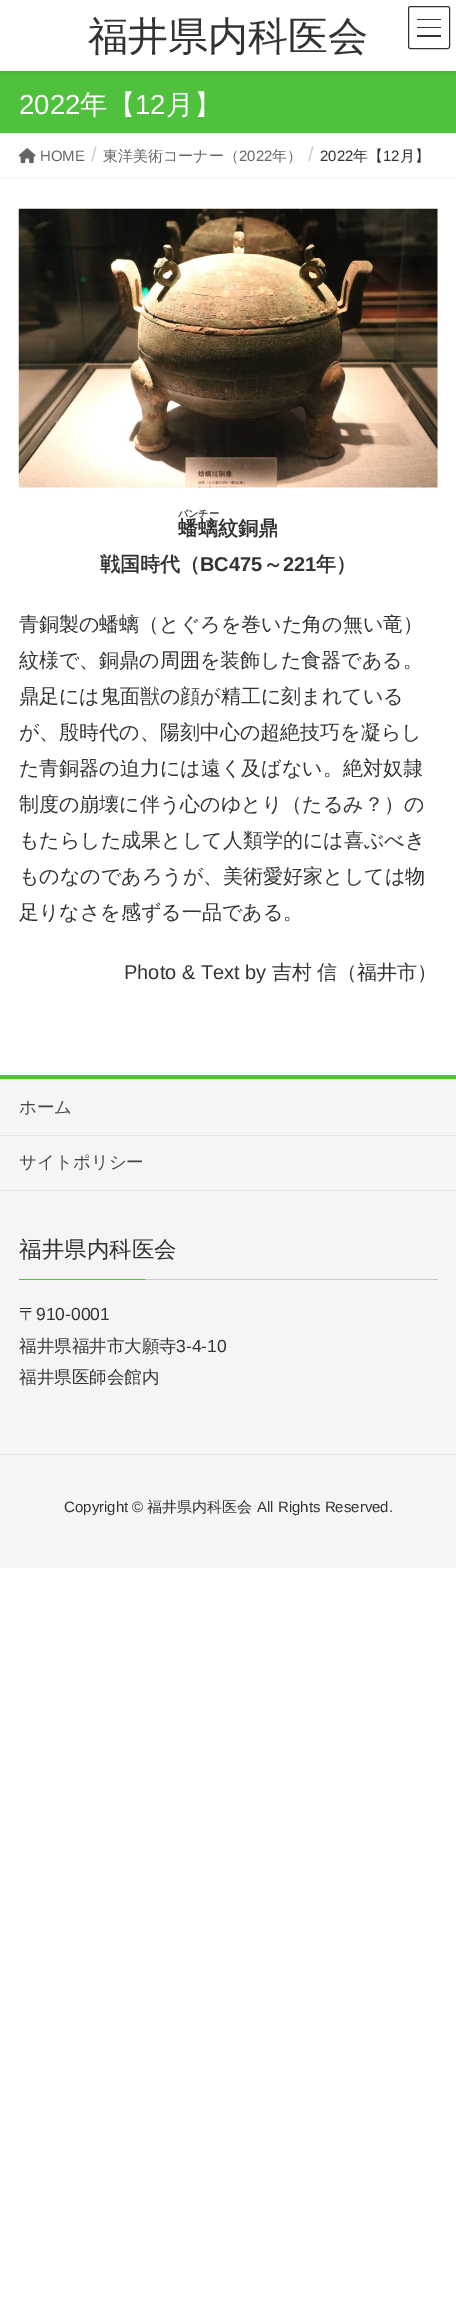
%!PS
<< /PageSize [456 2305] /PageUsesTransparency true >> setpagedevice
/rgb { 3 { 255 div 3 1 roll } repeat setrgbcolor } def
/font { [ exch dup neg 0 0 3 -1 roll 0 0 ] selectfont } def
/text { moveto show } def
/alpha { dup .setfillconstantalpha .setstrokeconstantalpha } def
/roundrect { 5 dict begin { /r /h /w /y /x } { exch def } forall
  x r add y moveto x w add y 2 copy h add r arct x w add y h add x 1 index r arct
  x y h add x y r arct x y 2 copy exch w add exch r arct closepath end } def
/shadow { 12 dict begin { /a /b /q /h /w /y /x } { exch def } forall gsave /was 0 def
  9 -2 -9 { dup b mul 4 div /e exch def 1 sub .425 mul 2.718 exch exp 1 add a .99 .min exch div /now exch def
    1 1 now sub 1 was sub div sub alpha /was now def
    w h .min e 2 mul add 0 gt { x e sub y e sub w e 2 mul add h e 2 mul add
      q e add b .6 mul add w h .min 2 div e add .min 0 .max roundrect fill } if } for grestore end } def
/picture { 5 dict begin { /h /w /y /x /name } { exch def } forall
  gsave x y translate w h scale
  w h 8 [w 0 0 h 0 0] name (r) file false 3 colorimage grestore end } def
0 .pushpdf14devicefilter
0 2305 translate 1 -1 scale
4 setmiterlimit
255 255 255 rgb
0 0 456 2305 rectfill
80 193 60 rgb
0 71 456 62 rectfill
gsave
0 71 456 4 rectclip
0 0 0 rgb
0 1 456 72 0 2 0.1 shadow
grestore
51 51 51 rgb
417 19 24 1 rectfill
417 27 24 1 rectfill
417 35 24 2 rectfill
408.5 6.5 41 42 2 roundrect stroke
238 238 238 rgb
0 133 456 1 rectfill
243 243 243 rgb
0 178 456 1 rectfill
(img_01.rgb) 18 148 18 16 picture
(img_02.rgb) 18 208 420 280 picture
245 245 245 rgb
0 1080 456 488 rectfill
80 193 60 rgb
0 1075 456 4 rectfill
229 229 229 rgb
0 1079 456 1 rectfill
0 1190 456 1 rectfill
0 1135 456 1 rectfill
204 204 204 rgb
145 1279 293 1 rectfill
80 193 60 rgb
19 1279 126 1 rectfill
229 229 229 rgb
0 1454 456 1 rectfill
/WenQuanYiZenHei-Medium 40 font
51 51 51 rgb
(福井県内科医会) 88 50 text
/LiberationSans-Regular 27.5 font
255 255 255 rgb
(2022) 19 114 text
/WenQuanYiZenHei-Medium 27.5 font
(年【) 80 114 text
/LiberationSans-Regular 27.5 font
(12) 135 114 text
/WenQuanYiZenHei-Medium 27.5 font
(月】) 166 114 text
/LiberationSans-Regular 15 font
102 102 102 rgb
(HOME) 40 161 text
/LiberationSans-Regular 20 font
204 204 204 rgb
(/) 91 161 text
/WenQuanYiZenHei-Medium 15 font
102 102 102 rgb
(東洋美術コーナー（) 103 161 text
/LiberationSans-Regular 15 font
(2022) 239 161 text
/WenQuanYiZenHei-Medium 15 font
(年）) 272 161 text
/LiberationSans-Regular 20 font
204 204 204 rgb
(/) 308 161 text
/LiberationSans-Regular 15 font
51 51 51 rgb
(2022) 320 161 text
/WenQuanYiZenHei-Medium 15 font
(年【) 353 161 text
/LiberationSans-Regular 15 font
(12) 383 161 text
/WenQuanYiZenHei-Medium 15 font
(月】) 400 161 text
/WenQuanYiZenHei-Bold 10 font
(パンチー) 178 517 text
/WenQuanYiZenHei-Bold 20 font
(蟠螭) 178 535 text
(紋銅鼎) 218 535 text
(戦国時代（) 100 571 text
/LiberationSans-Bold 20 font
(BC475) 200 571 text
/WenQuanYiZenHei-Bold 20 font
(～) 263 571 text
/LiberationSans-Bold 20 font
(221) 283 571 text
/WenQuanYiZenHei-Bold 20 font
(年）) 316 571 text
/WenQuanYiZenHei-Medium 20 font
(青銅製の蟠螭（とぐろを巻いた角の無い竜）) 19 631 text
(紋様で、銅鼎の周囲を装飾した食器である。) 19 667 text
(鼎足には鬼面獣の顔が精工に刻まれている) 19 703 text
(が、殷時代の、陽刻中心の超絶技巧を凝らし) 19 739 text
(た青銅器の迫力には遠く及ばない。絶対奴隷) 19 775 text
(制度の崩壊に伴う心のゆとり（たるみ？）の) 19 811 text
(もたらした成果として人類学的には喜ぶべき) 19 847 text
(ものなのであろうが、美術愛好家としては物) 19 883 text
(足りなさを感ずる一品である。) 19 919 text
/LiberationSans-Regular 20 font
(Photo & Text by) 124 979 text
/WenQuanYiZenHei-Medium 20 font
(吉村) 272 979 text
(信（福井市）) 317 979 text
/WenQuanYiZenHei-Medium 17.5 font
70 70 70 rgb
(ホーム) 19 1113 text
(サイトポリシー) 19 1168 text
/WenQuanYiZenHei-Medium 22.5 font
51 51 51 rgb
(福井県内科医会) 19 1257 text
/WenQuanYiZenHei-Medium 17.5 font
(〒) 19 1320 text
/LiberationSans-Regular 17.5 font
(910-0001) 36 1320 text
/WenQuanYiZenHei-Medium 17.5 font
(福井県福井市大願寺) 19 1352 text
/LiberationSans-Regular 17.5 font
(3-4-10) 176 1352 text
/WenQuanYiZenHei-Medium 17.5 font
(福井県医師会館内) 19 1383 text
/LiberationSans-Regular 15 font
(Copyright ©) 64 1512 text
/WenQuanYiZenHei-Medium 15 font
(福井県内科医会) 147 1512 text
/LiberationSans-Regular 15 font
(All Rights Reserved.) 257 1512 text
.poppdf14devicefilter showpage
